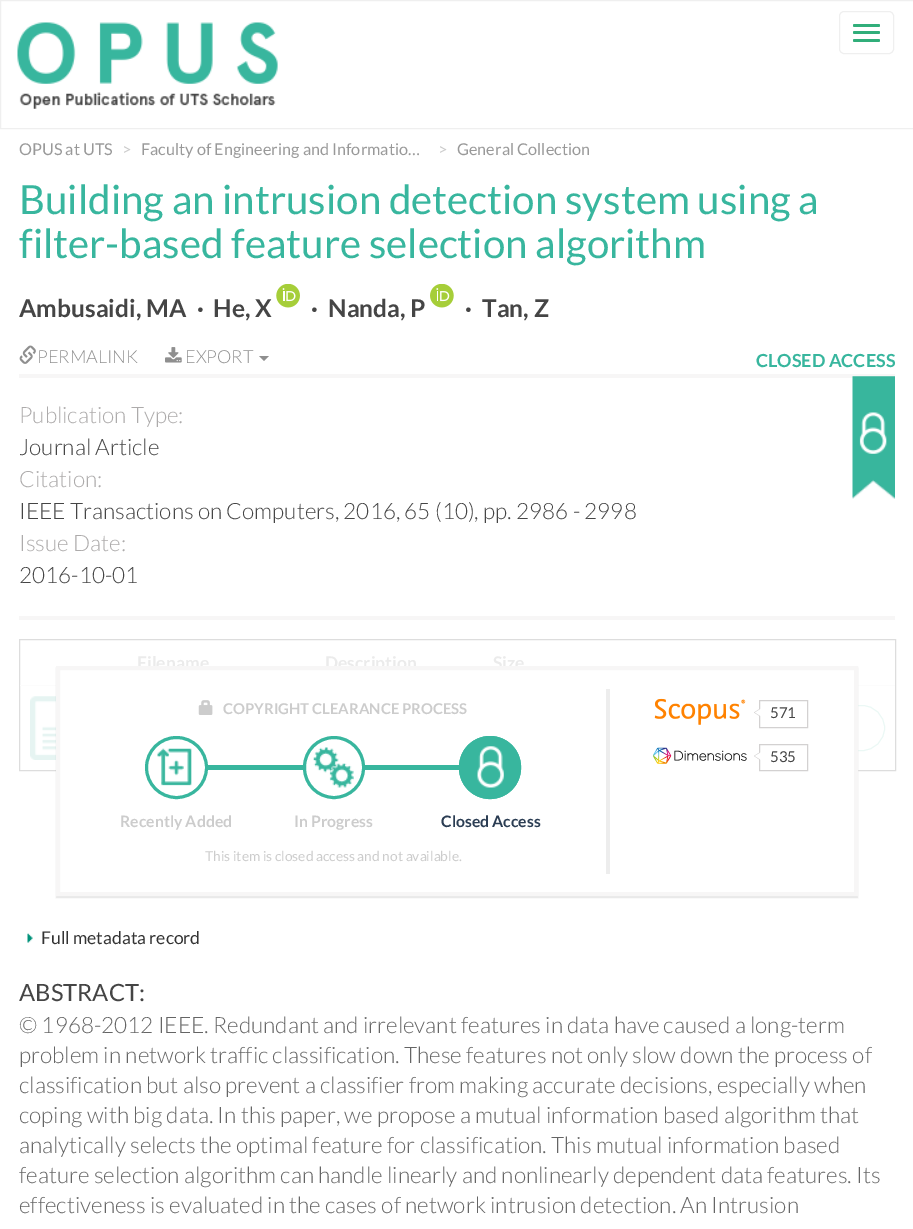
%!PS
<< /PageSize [913 1229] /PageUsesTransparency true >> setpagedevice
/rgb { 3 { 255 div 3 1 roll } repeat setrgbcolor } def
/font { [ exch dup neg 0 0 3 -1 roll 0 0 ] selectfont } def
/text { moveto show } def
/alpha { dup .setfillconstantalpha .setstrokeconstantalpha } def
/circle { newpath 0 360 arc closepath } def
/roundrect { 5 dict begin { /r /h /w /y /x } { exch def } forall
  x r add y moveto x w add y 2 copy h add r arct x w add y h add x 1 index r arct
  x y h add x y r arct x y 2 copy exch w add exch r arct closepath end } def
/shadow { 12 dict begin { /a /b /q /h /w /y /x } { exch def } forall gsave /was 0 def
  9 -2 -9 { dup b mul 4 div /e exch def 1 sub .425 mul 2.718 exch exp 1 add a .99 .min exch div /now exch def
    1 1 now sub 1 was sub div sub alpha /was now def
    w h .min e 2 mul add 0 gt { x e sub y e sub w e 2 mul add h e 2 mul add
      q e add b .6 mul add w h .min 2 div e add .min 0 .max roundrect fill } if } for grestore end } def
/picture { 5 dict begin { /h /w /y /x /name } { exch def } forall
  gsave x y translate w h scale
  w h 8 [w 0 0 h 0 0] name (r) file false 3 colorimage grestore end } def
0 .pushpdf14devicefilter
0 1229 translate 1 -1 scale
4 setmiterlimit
255 255 255 rgb
0 0 913 1229 rectfill
239 239 239 rgb
0.5 0.5 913 128 rectstroke
(img_01.rgb) 17 22 261 87 picture
839.5 11.5 54 42 4.5 roundrect stroke
49 174 122 rgb
853 24 27 3 1.5 roundrect fill
853 31 27 3 1.5 roundrect fill
853 39 27 3 1.5 roundrect fill
(img_02.rgb) 276 284 24 24 picture
(img_03.rgb) 430 284 24 24 picture
(img_04.rgb) 19 345 17 19 picture
(img_05.rgb) 165 347 17 16 picture
143 143 143 rgb
259 356 moveto 10 0 rlineto -5 5 rlineto closepath fill
247 246 246 rgb
19 374 876 4 rectfill
19 616 876 4 rectfill
(img_06.rgb) 852 376 43 123 picture
(img_07.rgb) 859 412 28 42 picture
221 221 221 rgb
19.5 639.5 876 131 rectstroke
252 252 252 rgb
20 685 36 1 rectfill
(img_08.rgb) 30 696 26 64 picture
858 685 37 1 rectfill
235 248 245 rgb
716.5 705.5 168 45 22.5 roundrect stroke
0 0 0 rgb
56 668 802 230 0 0.5 0.1 shadow
(img_15.rgb) 27 933 6 10 picture
/Lato-Regular 16.25 font
153 153 153 rgb
(OPUS at UTS) 19 155 text
204 204 204 rgb
(>) 122 155 text
153 153 153 rgb
(Faculty of Engineering and Informatio…) 141 155 text
204 204 204 rgb
(>) 438 155 text
153 153 153 rgb
(General Collection) 457 155 text
/Lato-Regular 40.25 font
56 182 158 rgb
(Building an intrusion detection system using a) 19 214 text
(filter-based feature selection algorithm) 19 258 text
/Lato-Bold 24.5 font
69 69 69 rgb
(Ambusaidi, MA) 19 317 text
(·) 197 317 text
(He, X) 213 317 text
(·) 311 317 text
(Nanda, P) 328 317 text
(·) 465 317 text
(Tan, Z) 482 317 text
/Lato-Light 18 font
143 143 143 rgb
(PERMALINK) 37 363 text
(EXPORT) 185 363 text
/Lato-Bold 18 font
56 182 158 rgb
(CLOSED ACCESS) 756 367 text
/Lato-Light 22.5 font
173 171 171 rgb
(Publication Type:) 19 423 text
69 69 69 rgb
(Journal Article) 19 455 text
173 171 171 rgb
(Citation:) 19 487 text
69 69 69 rgb
(IEEE Transactions on Computers, 2016, 65 \(10\), pp. 2986 - 2998) 19 519 text
173 171 171 rgb
(Issue Date:) 19 551 text
69 69 69 rgb
(2016-10-01) 19 583 text
/Lato-Bold 17.5 font
235 235 235 rgb
(Filename) 137 669 text
(Description) 325 669 text
(Size) 493 669 text
255 255 255 rgb
58 668 moveto 798 0 rlineto 0 226 rlineto -798 0 rlineto closepath gsave fill grestore
247 246 246 rgb
4 setlinewidth
stroke
237 237 237 rgb
606 689 4 185 rectfill
(img_09.rgb) 198 700 15 15 picture
/Lato-Bold 14.9 font
204 204 204 rgb
(COPYRIGHT CLEARANCE PROCESS) 223 714 text
56 182 158 rgb
207 765 253 5 rectfill
255 255 255 rgb
176.5 767.5 31.5 circle fill
(img_10.rgb) 157 748 35 38 picture
56 182 158 rgb
3 setlinewidth
176.5 767.5 30 circle stroke
/Lato-Bold 15.75 font
204 204 204 rgb
(Recently Added) 120 827 text
255 255 255 rgb
303 736 62 63 31 roundrect fill
(img_11.rgb) 313 747 41 41 picture
56 182 158 rgb
304.5 737.5 59 60 29.5 roundrect stroke
204 204 204 rgb
(In Progress) 294 827 text
56 182 158 rgb
459 736 62 63 31 roundrect fill
(img_12.rgb) 477 746 27 42 picture
460.5 737.5 59 60 29.5 roundrect stroke
43 61 83 rgb
(Closed Access) 441 827 text
/Lato-Regular 13.75 font
204 204 204 rgb
(This item is closed access and not available.) 205 861 text
(img_13.rgb) 654 698 92 27 picture
211 209 209 rgb
767.5 704 moveto 0 17 rlineto -13.5 -8.5 rlineto closepath fill
255 255 255 rgb
760 704 8 17 rectfill
211 209 209 rgb
1 setlinewidth
759.5 700.5 48 27 rectstroke
255 255 255 rgb
769 704 moveto 0 17 rlineto -14 -8.5 rlineto closepath fill
/Lato-Regular 15 font
69 69 69 rgb
(571) 770 718 text
(img_14.rgb) 653 747 94 17 picture
211 209 209 rgb
767.5 747.5 moveto 0 17.5 rlineto -13.5 -9 rlineto closepath fill
255 255 255 rgb
760 747 8 18 rectfill
211 209 209 rgb
759.5 744.5 48 26 rectstroke
255 255 255 rgb
769 747.5 moveto 0 17.5 rlineto -14 -9 rlineto closepath fill
69 69 69 rgb
(535) 770 762 text
/Lato-Regular 17.5 font
51 51 51 rgb
(Full metadata record) 41 944 text
/Lato-Regular 23.75 font
69 69 69 rgb
(ABSTRACT:) 19 1001 text
/Lato-Light 22.5 font
101 101 101 rgb
(© 1968-2012 IEEE. Redundant and irrelevant features in data have caused a long-term) 19 1033 text
(problem in network traffic classification. These features not only slow down the process of) 19 1063 text
(classification but also prevent a classifier from making accurate decisions, especially when) 19 1093 text
(coping with big data. In this paper, we propose a mutual information based algorithm that) 19 1123 text
(analytically selects the optimal feature for classification. This mutual information based) 19 1153 text
(feature selection algorithm can handle linearly and nonlinearly dependent data features. Its) 19 1183 text
(effectiveness is evaluated in the cases of network intrusion detection. An Intrusion) 19 1213 text
.poppdf14devicefilter showpage
